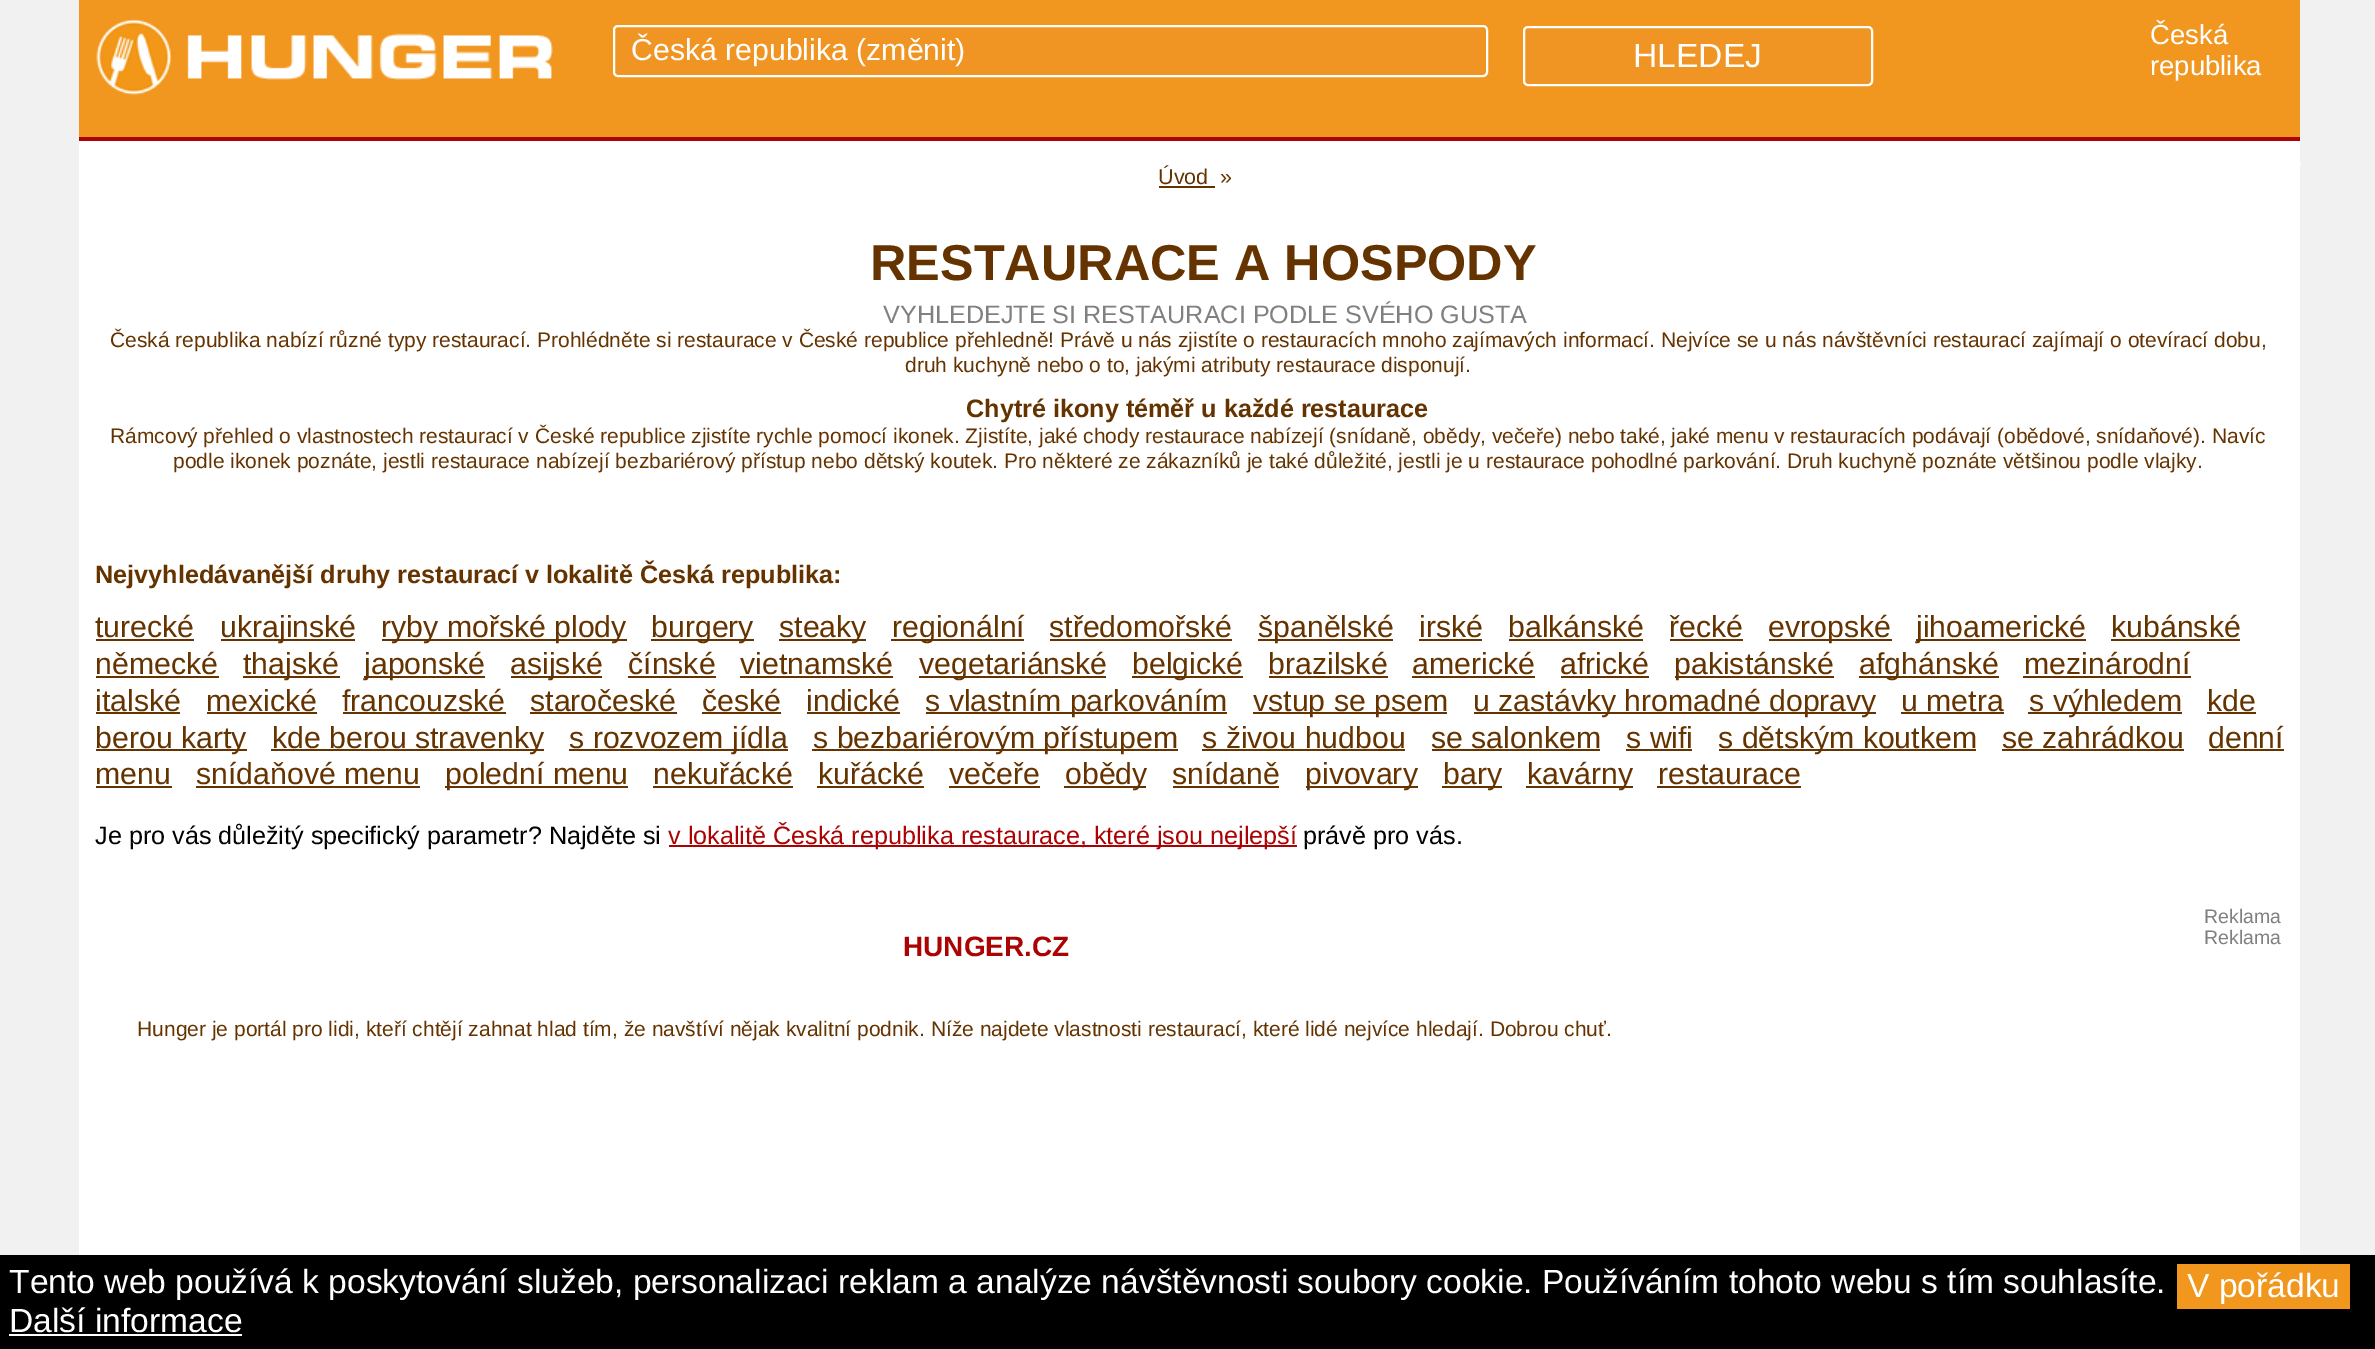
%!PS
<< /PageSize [2375 1349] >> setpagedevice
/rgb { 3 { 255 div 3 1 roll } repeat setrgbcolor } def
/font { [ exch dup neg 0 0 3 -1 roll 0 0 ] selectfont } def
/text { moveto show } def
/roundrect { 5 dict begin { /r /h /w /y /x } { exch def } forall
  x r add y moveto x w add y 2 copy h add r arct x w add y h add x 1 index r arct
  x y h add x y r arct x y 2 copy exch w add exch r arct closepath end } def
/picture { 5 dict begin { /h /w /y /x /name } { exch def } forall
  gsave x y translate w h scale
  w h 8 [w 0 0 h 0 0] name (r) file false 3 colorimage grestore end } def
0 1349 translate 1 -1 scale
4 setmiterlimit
241 241 241 rgb
0 0 2375 1349 rectfill
255 255 255 rgb
79 141 2221 1114 rectfill
241 150 30 rgb
79 0 2221 137 rectfill
171 3 3 rgb
79 137 2221 4 rectfill
(img_01.rgb) 96 19 457 76 picture
240 149 35 rgb
614 26 873 50 4 roundrect gsave fill grestore
255 255 255 rgb
2 setlinewidth
stroke
240 149 35 rgb
1524 27 348 58 4 roundrect gsave fill grestore
255 255 255 rgb
stroke
2300 163 1 2 rectfill
101 51 0 rgb
1159 186 56 2 rectfill
96 639 98 2 rectfill
221 639 134 2 rectfill
382 639 245 2 rectfill
651 639 103 2 rectfill
779 639 87 2 rectfill
891 639 133 2 rectfill
1050 639 182 2 rectfill
1258 639 135 2 rectfill
1419 639 63 2 rectfill
1509 639 134 2 rectfill
1670 639 73 2 rectfill
1769 639 123 2 rectfill
1916 639 170 2 rectfill
2111 639 129 2 rectfill
96 676 123 2 rectfill
243 676 97 2 rectfill
364 676 121 2 rectfill
511 676 91 2 rectfill
628 676 88 2 rectfill
740 676 153 2 rectfill
919 676 187 2 rectfill
1132 676 111 2 rectfill
1269 676 119 2 rectfill
1412 676 123 2 rectfill
1561 676 88 2 rectfill
1675 676 159 2 rectfill
1859 676 140 2 rectfill
2023 676 168 2 rectfill
96 712 84 2 rectfill
207 712 110 2 rectfill
343 712 163 2 rectfill
530 712 147 2 rectfill
702 712 79 2 rectfill
807 712 93 2 rectfill
926 712 301 2 rectfill
1253 712 194 2 rectfill
1474 712 402 2 rectfill
1901 712 103 2 rectfill
2028 712 154 2 rectfill
2207 712 49 2 rectfill
96 749 151 2 rectfill
271 749 273 2 rectfill
569 749 219 2 rectfill
812 749 366 2 rectfill
1202 749 203 2 rectfill
1432 749 168 2 rectfill
1626 749 66 2 rectfill
1719 749 257 2 rectfill
2002 749 182 2 rectfill
2209 749 75 2 rectfill
96 786 76 2 rectfill
196 786 224 2 rectfill
445 786 183 2 rectfill
653 786 140 2 rectfill
817 786 107 2 rectfill
949 786 91 2 rectfill
1064 786 82 2 rectfill
1173 786 106 2 rectfill
1306 786 112 2 rectfill
1442 786 60 2 rectfill
1526 786 107 2 rectfill
1657 786 144 2 rectfill
171 3 3 rgb
669 845 628 2 rectfill
0 0 0 rgb
0 1255 2375 94 rectfill
241 151 30 rgb
2177 1264 173 45 rectfill
255 255 255 rgb
9 1334 233 2 rectfill
/LiberationSans-Regular 30.25 font
(Česká republika \(změnit\)) 631 60 text
/LiberationSans-Regular 33.6 font
(HLEDEJ) 1633 67 text
/LiberationSans-Regular 27.5 font
(Česká) 2150 44 text
(republika) 2150 75 text
/LiberationSans-Regular 21.5 font
101 51 0 rgb
(Úvod) 1158 184 text
(») 1220 184 text
/LiberationSans-Bold 50.4 font
(RESTAURACE A HOSPODY) 870 280 text
/LiberationSans-Regular 25.2 font
128 128 128 rgb
(VYHLEDEJTE SI RESTAURACI PODLE SVÉHO GUSTA) 883 323 text
/LiberationSans-Regular 21 font
101 51 0 rgb
(Česká republika nabízí různé typy restaurací. Prohlédněte si restaurace v České republice přehledně! Právě u nás zjistíte o restauracích mnoho zajímavých informací. Nejvíce se u nás návštěvníci restaurací zajímají o otevírací dobu,) 110 347 text
(druh kuchyně nebo o to, jakými atributy restaurace disponují.) 905 372 text
/LiberationSans-Bold 25.2 font
(Chytré ikony téměř u každé restaurace) 966 417 text
/LiberationSans-Regular 21 font
(Rámcový přehled o vlastnostech restaurací v České republice zjistíte rychle pomocí ikonek. Zjistíte, jaké chody restaurace nabízejí \(snídaně, obědy, večeře\) nebo také, jaké menu v restauracích podávají \(obědové, snídaňové\). Navíc) 110 443 text
(podle ikonek poznáte, jestli restaurace nabízejí bezbariérový přístup nebo dětský koutek. Pro některé ze zákazníků je také důležité, jestli je u restaurace pohodlné parkování. Druh kuchyně poznáte většinou podle vlajky.) 173 468 text
/LiberationSans-Bold 25.2 font
(Nejvyhledávanější druhy restaurací v lokalitě Česká republika:) 95 583 text
/LiberationSans-Regular 30.25 font
(turecké) 95 637 text
(ukrajinské) 220 637 text
(ryby mořské plody) 381 637 text
(burgery) 651 637 text
(steaky) 779 637 text
(regionální) 892 637 text
(středomořské) 1049 637 text
(španělské) 1258 637 text
(irské) 1419 637 text
(balkánské) 1508 637 text
(řecké) 1669 637 text
(evropské) 1768 637 text
(jihoamerické) 1916 637 text
(kubánské) 2111 637 text
(německé) 95 674 text
(thajské) 243 674 text
(japonské) 364 674 text
(asijské) 510 674 text
(čínské) 628 674 text
(vietnamské) 740 674 text
(vegetariánské) 919 674 text
(belgické) 1132 674 text
(brazilské) 1268 674 text
(americké) 1412 674 text
(africké) 1560 674 text
(pakistánské) 1674 674 text
(afghánské) 1859 674 text
(mezinárodní) 2024 674 text
(italské) 95 711 text
(mexické) 206 711 text
(francouzské) 342 711 text
(staročeské) 530 711 text
(české) 702 711 text
(indické) 806 711 text
(s vlastním parkováním) 925 711 text
(vstup se psem) 1253 711 text
(u zastávky hromadné dopravy) 1473 711 text
(u metra) 1901 711 text
(s výhledem) 2029 711 text
(kde) 2207 711 text
(berou karty) 95 748 text
(kde berou stravenky) 272 748 text
(s rozvozem jídla) 569 748 text
(s bezbariérovým přístupem) 813 748 text
(s živou hudbou) 1202 748 text
(se salonkem) 1431 748 text
(s wifi) 1626 748 text
(s dětským koutkem) 1718 748 text
(se zahrádkou) 2002 748 text
(denní) 2208 748 text
(menu) 95 784 text
(snídaňové menu) 196 784 text
(polední menu) 445 784 text
(nekuřácké) 653 784 text
(kuřácké) 818 784 text
(večeře) 949 784 text
(obědy) 1065 784 text
(snídaně) 1172 784 text
(pivovary) 1305 784 text
(bary) 1443 784 text
(kavárny) 1527 784 text
(restaurace) 1658 784 text
/LiberationSans-Regular 25.2 font
0 0 0 rgb
(Je pro vás důležitý specifický parametr? Najděte si) 95 844 text
171 3 3 rgb
(v lokalitě Česká republika restaurace, které jsou nejlepší) 668 844 text
0 0 0 rgb
(právě pro vás.) 1303 844 text
/LiberationSans-Regular 19.5 font
128 128 128 rgb
(Reklama) 2204 923 text
(Reklama) 2204 944 text
/LiberationSans-Bold 28 font
171 3 3 rgb
(HUNGER.CZ) 903 956 text
/LiberationSans-Regular 21 font
101 51 0 rgb
(Hunger je portál pro lidi, kteří chtějí zahnat hlad tím, že navštíví nějak kvalitní podnik. Níže najdete vlastnosti restaurací, které lidé nejvíce hledají. Dobrou chuť.) 137 1036 text
/LiberationSans-Regular 33.6 font
255 255 255 rgb
(Tento web používá k poskytování služeb, personalizaci reklam a analýze návštěvnosti soubory cookie. Používáním tohoto webu s tím souhlasíte.) 9 1293 text
(V pořádku) 2187 1297 text
(Další informace) 9 1332 text
showpage
